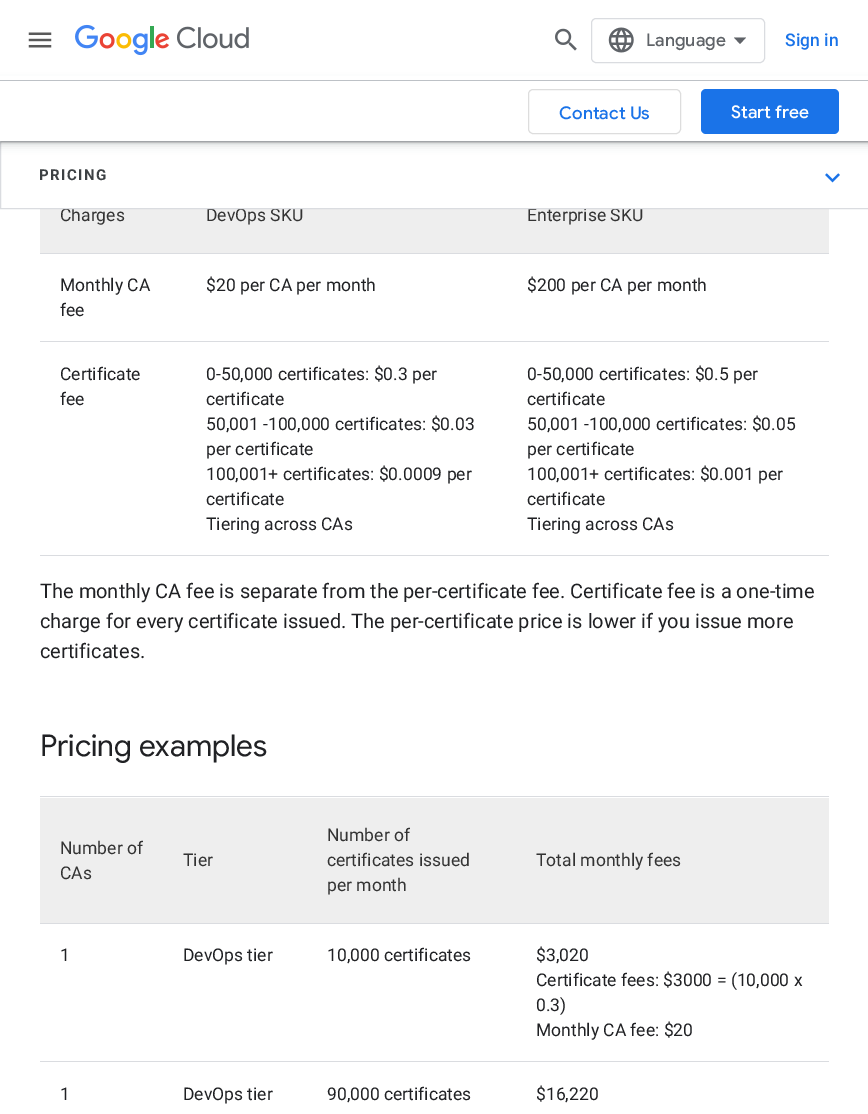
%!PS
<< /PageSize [868 1114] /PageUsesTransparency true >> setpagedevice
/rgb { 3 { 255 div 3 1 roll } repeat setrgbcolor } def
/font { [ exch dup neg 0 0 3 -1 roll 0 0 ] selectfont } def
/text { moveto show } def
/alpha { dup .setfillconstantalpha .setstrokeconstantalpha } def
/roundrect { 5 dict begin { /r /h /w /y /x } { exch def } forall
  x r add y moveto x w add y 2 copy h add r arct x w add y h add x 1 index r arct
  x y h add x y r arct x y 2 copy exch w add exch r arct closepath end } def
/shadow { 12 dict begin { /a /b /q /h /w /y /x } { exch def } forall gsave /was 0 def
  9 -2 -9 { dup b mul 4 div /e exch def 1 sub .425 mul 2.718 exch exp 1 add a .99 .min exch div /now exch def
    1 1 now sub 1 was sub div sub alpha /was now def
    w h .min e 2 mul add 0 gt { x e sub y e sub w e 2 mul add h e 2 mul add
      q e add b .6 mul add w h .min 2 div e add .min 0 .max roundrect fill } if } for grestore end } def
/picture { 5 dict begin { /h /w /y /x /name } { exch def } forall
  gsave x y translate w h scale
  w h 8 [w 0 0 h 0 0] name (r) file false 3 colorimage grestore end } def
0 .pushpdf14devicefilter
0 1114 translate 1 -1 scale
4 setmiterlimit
255 255 255 rgb
0 0 868 1114 rectfill
(img_01.rgb) 28 32 24 16 picture
(img_02.rgb) 75 24 174 32 picture
(img_03.rgb) 555 28 22 23 picture
218 220 224 rgb
591.5 18.5 173 44 4.5 roundrect stroke
(img_04.rgb) 608 27 26 26 picture
95 99 104 rgb
740 44 moveto -6 -6.5 rlineto 12 0 rlineto closepath fill
238 238 238 rgb
40 209 789 44 rectfill
218 220 224 rgb
40 253 789 1 rectfill
40 341 789 1 rectfill
40 555 789 1 rectfill
40 796 789 1 rectfill
238 238 238 rgb
40 798 789 125 rectfill
218 220 224 rgb
40 923 789 1 rectfill
40 1061 789 1 rectfill
/GoogleSans-Medium 17.5 font
95 99 104 rgb
(Language) 646 46 text
/Roboto-Medium 17.5 font
26 115 232 rgb
(Sign in) 785 46 text
/Roboto-Regular 17.5 font
51 51 51 rgb
(Charges) 60 221 text
255 255 255 rgb
72 207 3 1 rectfill
51 51 51 rgb
(DevOps SKU) 206 221 text
(Enterprise SKU) 527 221 text
218 220 224 rgb
0.5 141.5 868 67 rectstroke
60 64 67 rgb
0 83 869 60 0 1 0.3 shadow
-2 81 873 65 0 4 0.15 shadow
189 193 198 rgb
0 80 868 1 rectfill
255 255 255 rgb
0 76 868 4 rectfill
0 81 868 60 rectfill
26 115 232 rgb
701 89 138 45 5 roundrect fill
/GoogleSans-Medium 17.5 font
255 255 255 rgb
(Start free) 731 118 text
221 221 221 rgb
528.5 89.5 152 44 4.5 roundrect stroke
26 115 232 rgb
(Contact Us) 559 119 text
/Roboto-Bold 15 font
60 64 67 rgb
39 180 moveto 1.5 0 (PRICING) ashow
(img_05.rgb) 825 173 15 10 picture
/Roboto-Regular 17.5 font
32 33 36 rgb
(Monthly CA) 60 291 text
(fee) 60 316 text
($20 per CA per month) 206 291 text
($200 per CA per month) 527 291 text
(Certificate) 60 380 text
(fee) 60 405 text
(0-50,000 certificates: $0.3 per) 206 380 text
(certificate) 206 405 text
(50,001 -100,000 certificates: $0.03) 206 430 text
(per certificate) 206 455 text
(100,001+ certificates: $0.0009 per) 206 480 text
(certificate) 206 505 text
(Tiering across CAs) 206 530 text
(0-50,000 certificates: $0.5 per) 527 380 text
(certificate) 527 405 text
(50,001 -100,000 certificates: $0.05) 527 430 text
(per certificate) 527 455 text
(100,001+ certificates: $0.001 per) 527 480 text
(certificate) 527 505 text
(Tiering across CAs) 527 530 text
/Roboto-Regular 20 font
(The monthly CA fee is separate from the per-certificate fee. Certificate fee is a one-time) 40 598 text
(charge for every certificate issued. The per-certificate price is lower if you issue more) 40 628 text
(certificates.) 40 658 text
/GoogleSans-Regular 30 font
(Pricing examples) 40 756 text
/Roboto-Regular 17.5 font
51 51 51 rgb
(Number of) 60 854 text
(CAs) 60 879 text
(Tier) 183 866 text
(Number of) 327 841 text
(certificates issued) 327 866 text
(per month) 327 891 text
(Total monthly fees) 536 866 text
32 33 36 rgb
(1) 60 961 text
(DevOps tier) 183 961 text
(10,000 certificates) 327 961 text
($3,020) 536 961 text
(Certificate fees: $3000 = \(10,000 x) 536 986 text
(0.3\)) 536 1011 text
(Monthly CA fee: $20) 536 1036 text
(1) 60 1100 text
(DevOps tier) 183 1100 text
(90,000 certificates) 327 1100 text
($16,220) 536 1100 text
.poppdf14devicefilter showpage
